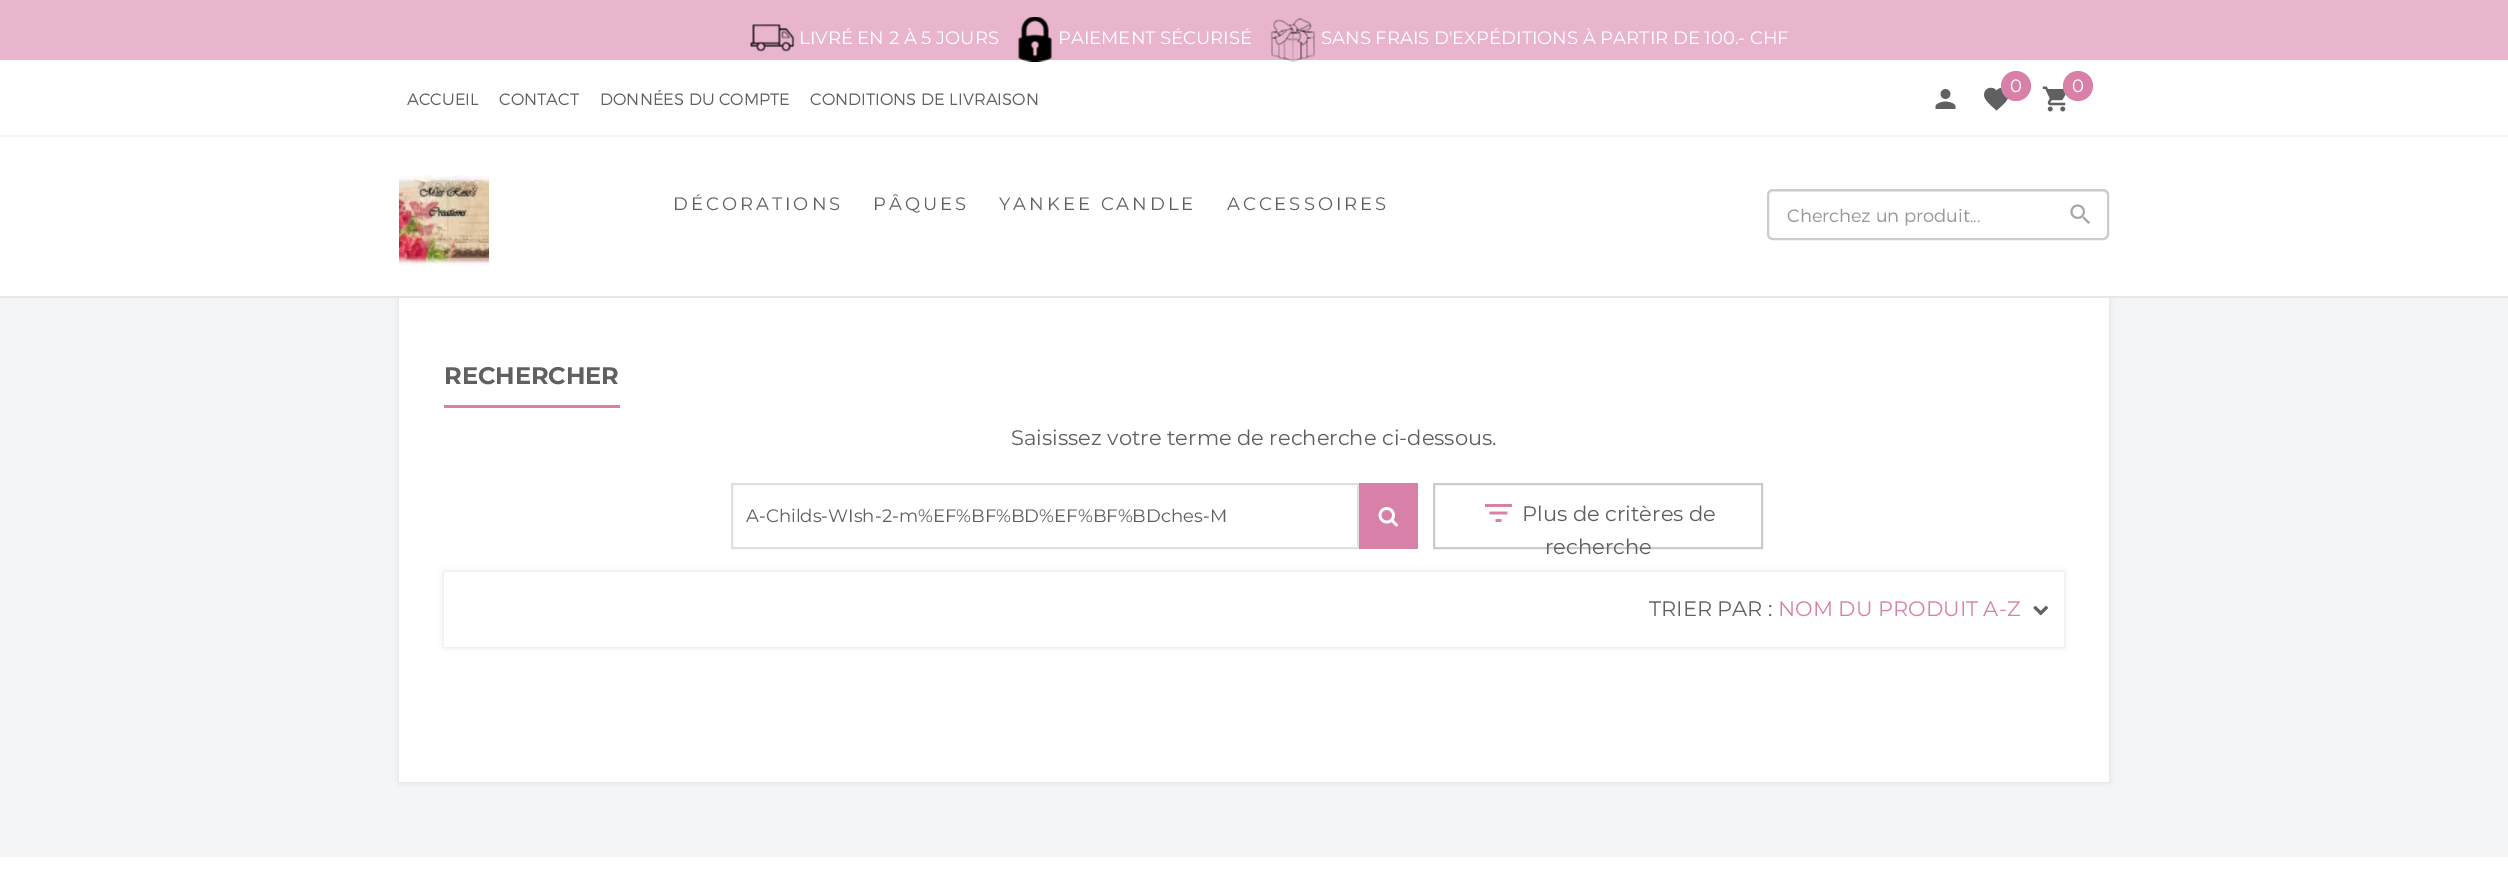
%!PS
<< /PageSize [2508 890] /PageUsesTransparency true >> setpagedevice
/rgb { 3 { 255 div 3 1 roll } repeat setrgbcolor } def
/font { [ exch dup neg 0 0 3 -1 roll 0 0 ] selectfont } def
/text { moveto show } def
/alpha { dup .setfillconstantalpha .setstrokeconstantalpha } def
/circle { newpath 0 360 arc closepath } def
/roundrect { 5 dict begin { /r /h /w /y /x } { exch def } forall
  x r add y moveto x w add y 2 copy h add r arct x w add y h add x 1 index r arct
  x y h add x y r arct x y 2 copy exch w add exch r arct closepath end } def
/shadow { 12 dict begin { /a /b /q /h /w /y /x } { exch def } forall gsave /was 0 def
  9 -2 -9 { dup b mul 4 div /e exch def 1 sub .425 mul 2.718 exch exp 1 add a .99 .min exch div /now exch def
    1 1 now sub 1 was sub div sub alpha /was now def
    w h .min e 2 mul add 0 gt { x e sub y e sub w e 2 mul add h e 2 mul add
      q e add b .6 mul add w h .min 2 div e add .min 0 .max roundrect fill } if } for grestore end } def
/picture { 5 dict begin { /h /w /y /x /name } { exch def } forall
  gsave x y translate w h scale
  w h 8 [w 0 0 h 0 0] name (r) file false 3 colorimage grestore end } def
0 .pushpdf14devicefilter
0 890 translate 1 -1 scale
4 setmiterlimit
244 245 246 rgb
0 0 2508 890 rectfill
189 189 189 rgb
399 288 1710 494 0 3 0.5 shadow
255 255 255 rgb
0 60 2508 236 rectfill
231 231 231 rgb
0 296 2508 2 rectfill
233 181 205 rgb
0 0 2508 60 rectfill
(img_01.rgb) 750 24 45 28 picture
(img_02.rgb) 1017 17 36 45 picture
(img_03.rgb) 1270 18 46 44 picture
(img_04.rgb) 1984 87 25 24 picture
217 128 169 rgb
2016 86 15 circle fill
(img_05.rgb) 2042 86 24 26 picture
2078 86 15 circle fill
(img_06.rgb) 1935 89 21 20 picture
244 245 246 rgb
0 135 2508 2 rectfill
(img_07.rgb) 399 175 90 91 picture
236 236 236 rgb
1773 192 moveto 330 0 rlineto 2 0 5 2 5 4 rcurveto 0 -3 -2 -5 -5 -5 rcurveto -329 0 rlineto -2 0 -3 1 -4 2 rcurveto closepath fill
204 204 204 rgb
2 setlinewidth
1768 190 340 49 5 roundrect stroke
(img_08.rgb) 2070 204 20 20 picture
255 255 255 rgb
399 298 1710 484 rectfill
217 128 169 rgb
444 405 176 3 rectfill
223 223 223 rgb
732 484 626 64 rectstroke
217 128 169 rgb
1359 483 59 66 rectfill
(img_09.rgb) 1378 507 20 20 picture
204 204 204 rgb
1434 484 328 64 rectstroke
(img_10.rgb) 1485 504 27 18 picture
189 189 189 rgb
444 572 1620 75 0 3 0.5 shadow
255 255 255 rgb
444 572 1620 75 rectfill
(img_11.rgb) 2033 605 16 11 picture
0 857 2508 33 rectfill
/Montserrat-Regular 18 font
(LIVRÉ EN 2 À 5 JOURS) 799 44 text
(PAIEMENT SÉCURISÉ) 1058 44 text
(SANS FRAIS D'EXPÉDITIONS À PARTIR DE 100.- CHF) 1321 44 text
(0) 2010 92 text
(0) 2072 92 text
/Montserrat-Light 16.5 font
94 96 98 rgb
(ACCUEIL) 407 105 text
(CONTACT) 499 105 text
(DONNÉES DU COMPTE) 600 105 text
(CONDITIONS DE LIVRAISON) 810 105 text
/Montserrat-Regular 18 font
673 210 moveto 3 0 (DÉCORATIONS) ashow
873 210 moveto 3 0 (PÂQUES) ashow
999 210 moveto 3 0 (YANKEE CANDLE) ashow
1227 210 moveto 3 0 (ACCESSOIRES) ashow
/Montserrat-Light 18 font
153 153 153 rgb
(Cherchez un produit...) 1787 222 text
/Montserrat-Bold 24 font
94 96 98 rgb
(RECHERCHER) 444 384 text
/Montserrat-Regular 21 font
(Saisissez votre terme de recherche ci-dessous.) 1011 445 text
/Montserrat-Regular 18 font
(A-Childs-WIsh-2-m%EF%BF%BD%EF%BF%BDches-M) 746 522 text
/Montserrat-Regular 21 font
(Plus de critères de) 1522 521 text
(recherche) 1545 554 text
(TRIER PAR :) 1649 616 text
217 128 169 rgb
(NOM DU PRODUIT A-Z) 1778 616 text
.poppdf14devicefilter showpage
